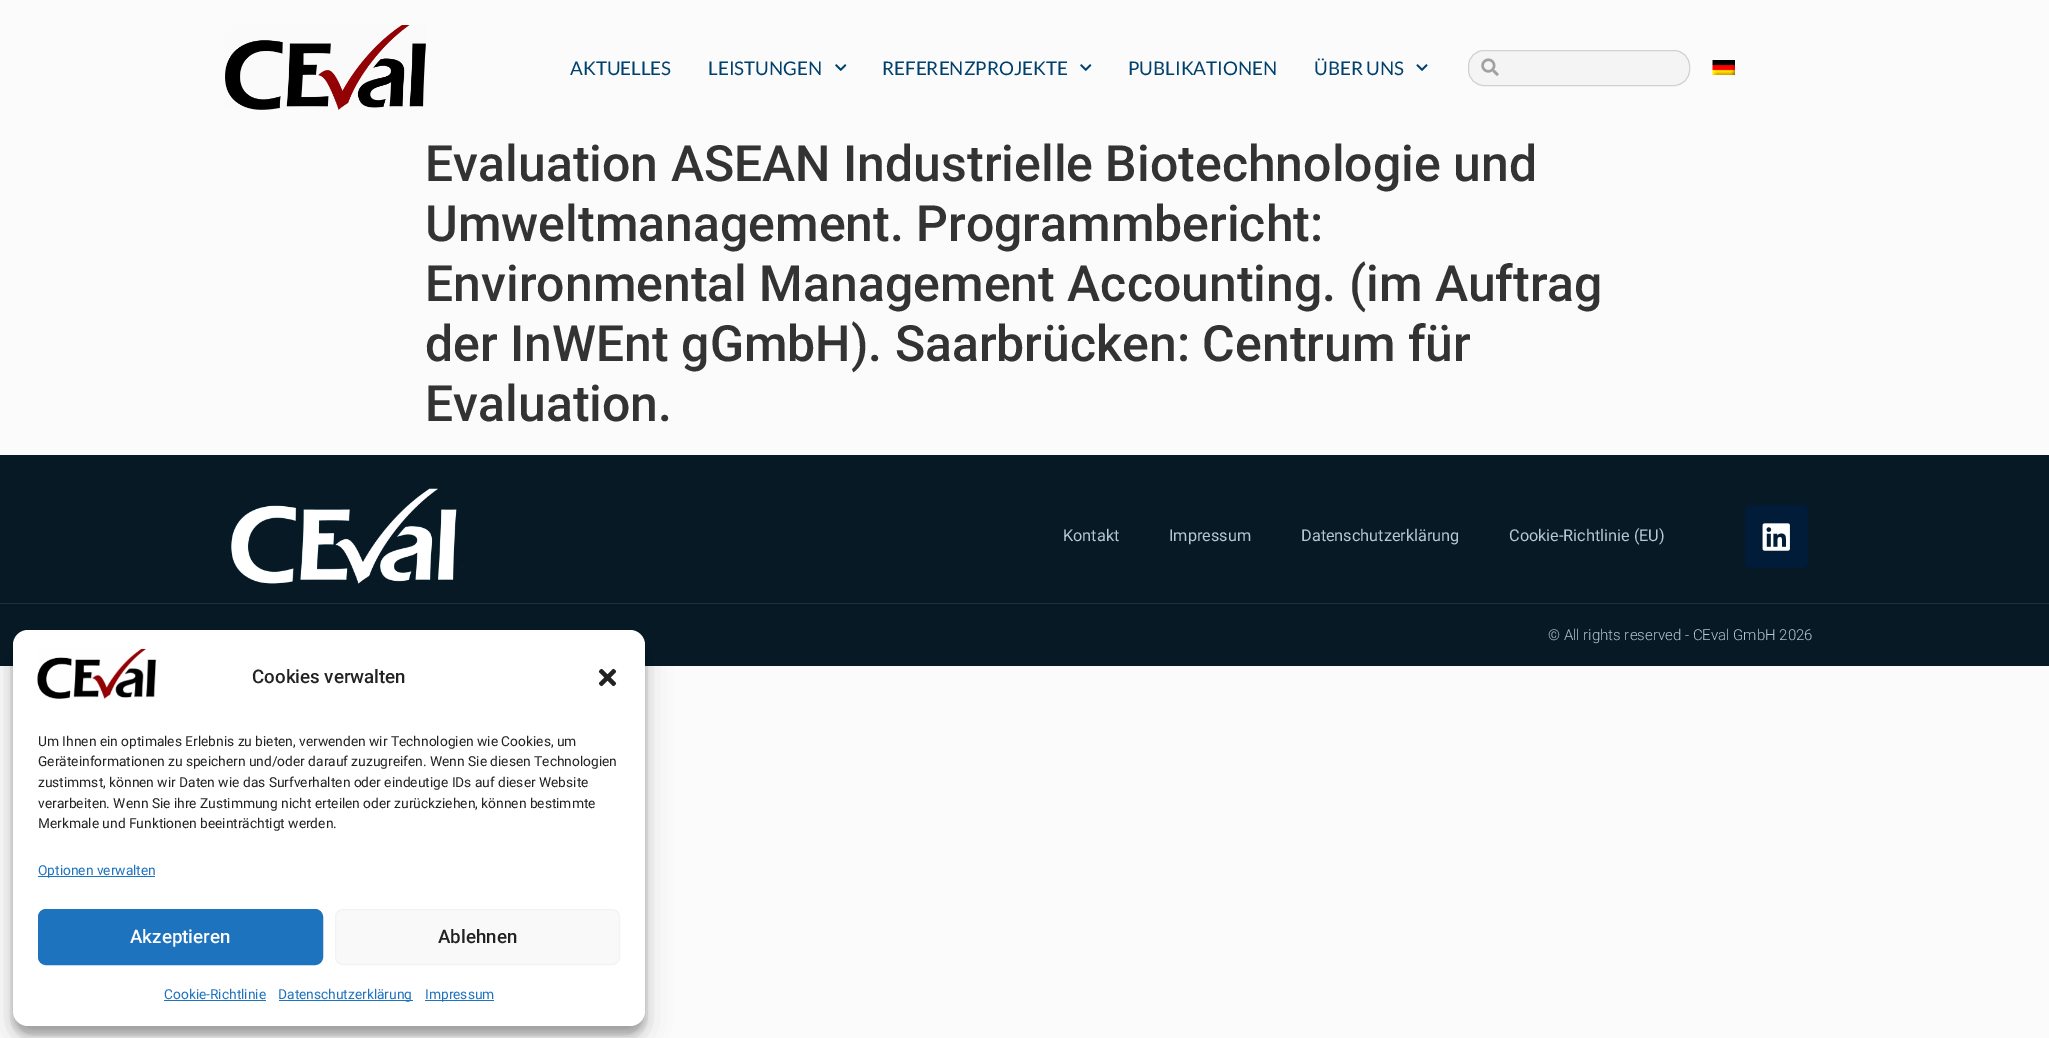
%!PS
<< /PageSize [2049 1038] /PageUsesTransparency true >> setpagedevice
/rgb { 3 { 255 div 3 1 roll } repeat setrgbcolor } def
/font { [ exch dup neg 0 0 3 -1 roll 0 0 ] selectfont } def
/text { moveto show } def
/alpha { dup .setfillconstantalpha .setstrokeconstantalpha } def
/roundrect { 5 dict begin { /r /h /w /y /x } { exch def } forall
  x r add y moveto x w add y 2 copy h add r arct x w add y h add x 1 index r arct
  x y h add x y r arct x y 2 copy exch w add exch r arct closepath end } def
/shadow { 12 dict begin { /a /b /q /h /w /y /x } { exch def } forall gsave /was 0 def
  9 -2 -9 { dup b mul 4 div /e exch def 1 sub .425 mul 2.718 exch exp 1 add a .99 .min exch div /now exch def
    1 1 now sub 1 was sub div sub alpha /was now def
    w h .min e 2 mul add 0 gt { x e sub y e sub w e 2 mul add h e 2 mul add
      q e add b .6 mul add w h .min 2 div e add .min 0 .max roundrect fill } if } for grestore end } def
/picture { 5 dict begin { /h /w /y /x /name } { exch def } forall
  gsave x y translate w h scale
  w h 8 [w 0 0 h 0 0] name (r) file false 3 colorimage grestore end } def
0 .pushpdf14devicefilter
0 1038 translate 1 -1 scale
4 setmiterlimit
251 251 251 rgb
0 0 2049 1038 rectfill
(img_01.rgb) 225 25 201 85 picture
(img_02.rgb) 835 64 12 7 picture
(img_02.rgb) 1080 64 12 7 picture
(img_03.rgb) 1416 64 12 7 picture
244 244 244 rgb
1468.5 50.5 221 35 15.5 roundrect gsave fill grestore
209 209 209 rgb
stroke
(img_04.rgb) 1481 58 18 18 picture
(img_05.rgb) 1712 60 23 15 picture
6 25 37 rgb
0 455 2049 148 rectfill
(img_06.rgb) 231 488 232 96 picture
0 28 56 rgb
1745 505 63 63 6 roundrect fill
(img_07.rgb) 1762 523 28 28 picture
6 25 37 rgb
0 604 2049 62 rectfill
31 48 59 rgb
0 603 2049 1 rectfill
0 0 0 rgb
13 638 632 396 15 4 0.23 shadow
13 643 632 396 15 12.5 0.19 shadow
255 255 255 rgb
13 630 632 396 15 roundrect fill
(img_08.rgb) 37 648 120 51 picture
(img_09.rgb) 598 668 19 19 picture
30 115 190 rgb
38 876 117 1 rectfill
38.5 909.5 284 55 7.5 roundrect gsave fill grestore
stroke
249 249 249 rgb
335.5 909.5 284 55 7.5 roundrect gsave fill grestore
242 242 242 rgb
stroke
30 115 190 rgb
164 1000 102 1 rectfill
279 1000 134 1 rectfill
425 1000 69 1 rectfill
/Lato-Regular 18.75 font
0 64 109 rgb
(AKTUELLES) 570 75 text
(LEISTUNGEN) 708 75 text
(REFERENZPROJEKTE) 882 75 text
(PUBLIKATIONEN) 1128 75 text
(ÜBER UNS) 1314 75 text
/Roboto-Medium 50 font
51 51 51 rgb
(Evaluation ASEAN Industrielle Biotechnologie und) 425 181 text
(Umweltmanagement. Programmbericht:) 425 241 text
(Environmental Management Accounting. \(im Auftrag) 425 301 text
(der InWEnt gGmbH\). Saarbrücken: Centrum für) 425 361 text
(Evaluation.) 425 421 text
/Roboto-Regular 16.25 font
183 200 213 rgb
(Kontakt) 1063 541 text
(Impressum) 1169 541 text
(Datenschutzerklärung) 1301 541 text
(Cookie-Richtlinie \(EU\)) 1509 541 text
/Roboto-Light 15 font
(© All rights reserved - CEval GmbH 2026) 1548 640 text
/Roboto-Medium 18.75 font
34 34 34 rgb
(Cookies verwalten) 252 683 text
/Roboto-Regular 13.75 font
(Um Ihnen ein optimales Erlebnis zu bieten, verwenden wir Technologien wie Cookies, um) 38 746 text
(Geräteinformationen zu speichern und/oder darauf zuzugreifen. Wenn Sie diesen Technologien) 38 766 text
(zustimmst, können wir Daten wie das Surfverhalten oder eindeutige IDs auf dieser Website) 38 787 text
(verarbeiten. Wenn Sie ihre Zustimmung nicht erteilen oder zurückziehen, können bestimmte) 38 808 text
(Merkmale und Funktionen beeinträchtigt werden.) 38 828 text
30 115 190 rgb
(Optionen verwalten) 38 875 text
/Roboto-Medium 18.75 font
255 255 255 rgb
(Akzeptieren) 130 943 text
34 34 34 rgb
(Ablehnen) 438 943 text
/Roboto-Regular 13.75 font
30 115 190 rgb
(Cookie-Richtlinie) 164 999 text
(Datenschutzerklärung) 278 999 text
(Impressum) 425 999 text
.poppdf14devicefilter showpage
